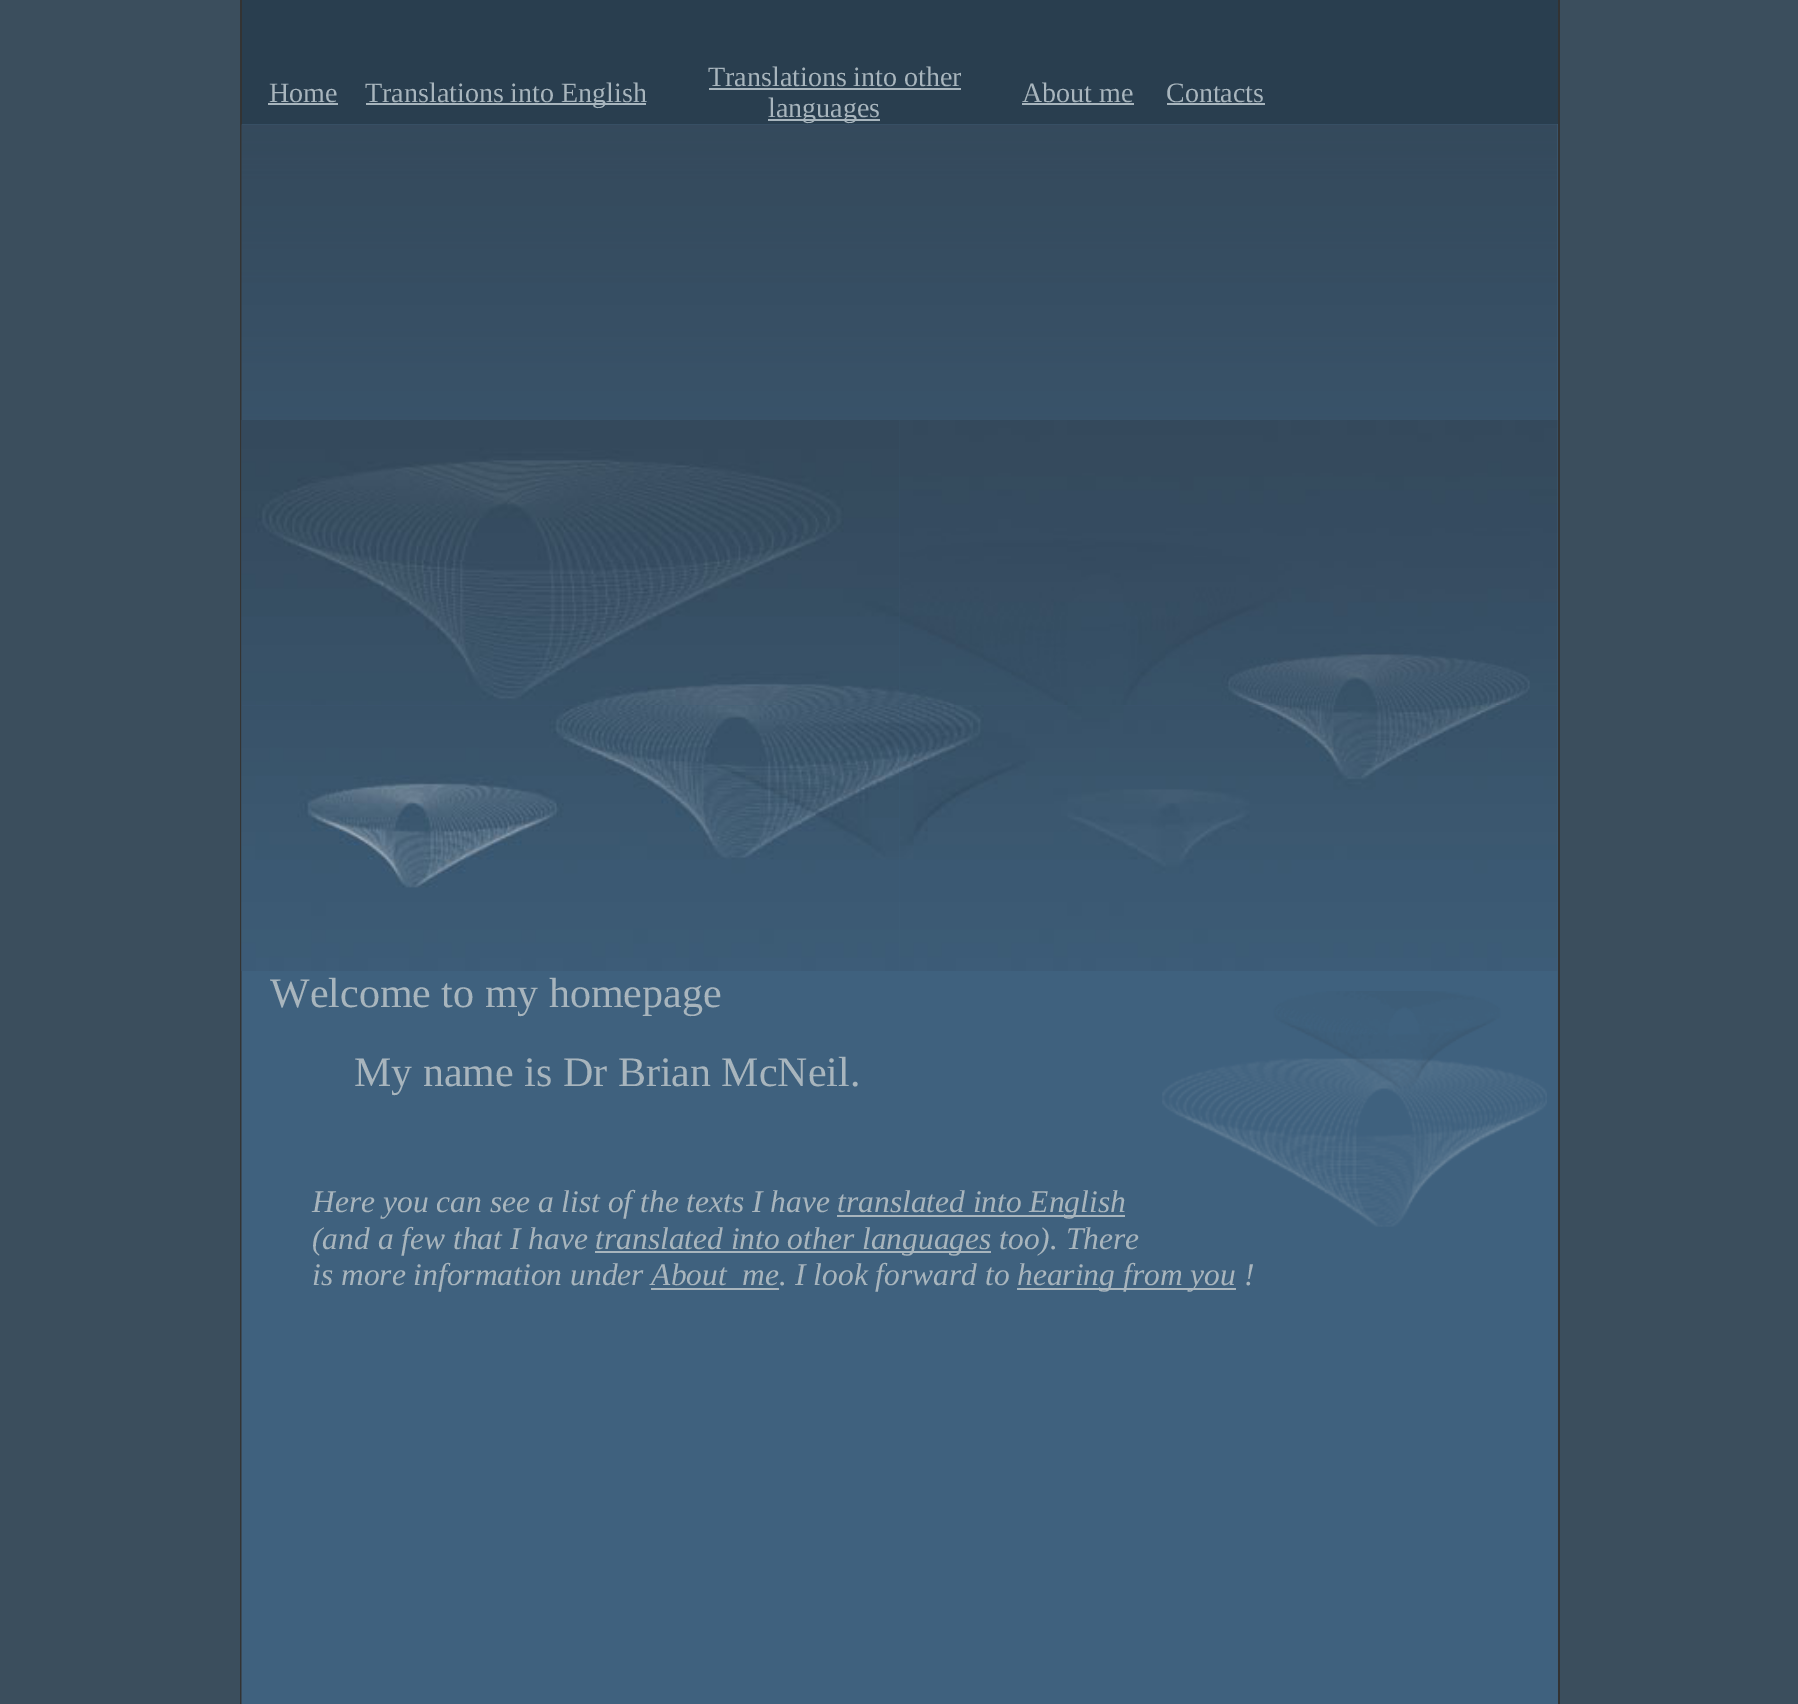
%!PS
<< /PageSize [1798 1704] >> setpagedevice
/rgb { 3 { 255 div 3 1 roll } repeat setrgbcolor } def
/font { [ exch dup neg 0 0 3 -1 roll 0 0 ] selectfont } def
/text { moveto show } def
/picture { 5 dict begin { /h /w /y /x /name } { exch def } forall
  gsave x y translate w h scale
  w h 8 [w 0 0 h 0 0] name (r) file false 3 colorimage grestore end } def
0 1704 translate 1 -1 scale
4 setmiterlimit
59 78 93 rgb
0 0 1798 1704 rectfill
63 97 126 rgb
242 124 1316 1580 rectfill
51 51 51 rgb
240 0 2 1704 rectfill
41 62 79 rgb
242 0 1316 124 rectfill
168 181 189 rgb
268 103 70 2 rectfill
366 103 280 2 rectfill
709 88 252 2 rectfill
768 119 112 2 rectfill
1022 103 112 2 rectfill
1167 103 98 2 rectfill
51 51 51 rgb
1558 0 2 1704 rectfill
(img_01.rgb) 241 124 1317 1580 picture
(img_02.rgb) 241 420 659 286 picture
(img_03.rgb) 899 420 659 286 picture
(img_04.rgb) 241 705 659 266 picture
(img_05.rgb) 899 705 659 266 picture
(img_06.rgb) 1162 991 385 236 picture
168 181 189 rgb
837 1215 288 2 rectfill
595 1251 396 2 rectfill
651 1288 128 2 rectfill
1017 1288 219 2 rectfill
/LiberationSerif-Regular 28 font
(Home) 269 102 text
(Translations into English) 365 102 text
(Translations into other) 708 86 text
(languages) 768 117 text
(About me) 1022 102 text
(Contacts) 1166 102 text
/LiberationSerif-Regular 42 font
(Welcome to my homepage) 270 1007 text
(My name is Dr Brian McNeil.) 354 1086 text
/LiberationSerif-Italic 31.5 font
(Here you can see a list of the texts I have) 312 1212 text
(translated into English) 837 1212 text
(\(and a few that I have) 312 1249 text
(translated into other languages too\). There) 595 1249 text
(is more information under About  me. I look forward to) 312 1285 text
(hearing from you !) 1017 1285 text
showpage
